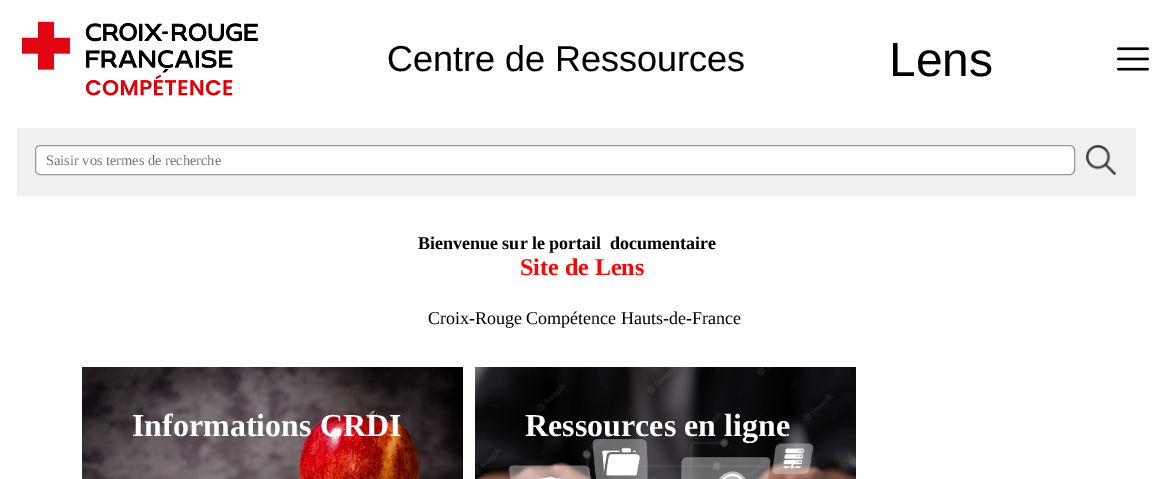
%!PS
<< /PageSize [1165 479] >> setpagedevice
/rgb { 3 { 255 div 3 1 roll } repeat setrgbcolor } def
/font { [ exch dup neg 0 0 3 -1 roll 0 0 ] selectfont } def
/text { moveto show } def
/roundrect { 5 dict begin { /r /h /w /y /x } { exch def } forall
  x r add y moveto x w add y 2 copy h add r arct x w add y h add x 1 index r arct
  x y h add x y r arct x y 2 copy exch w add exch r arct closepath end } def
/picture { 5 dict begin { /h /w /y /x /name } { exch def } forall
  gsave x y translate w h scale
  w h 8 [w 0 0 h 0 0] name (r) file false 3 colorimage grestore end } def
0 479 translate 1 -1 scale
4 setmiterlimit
255 255 255 rgb
0 0 1165 479 rectfill
(img_01.rgb) 22 21 236 75 picture
(img_02.rgb) 1117 47 32 24 picture
240 240 240 rgb
17 128 1119 68 rectfill
255 255 255 rgb
35.5 145.5 1039 29 4.5 roundrect gsave fill grestore
153 153 153 rgb
stroke
(img_03.rgb) 1086 145 30 30 picture
(img_04.rgb) 82 367 381 112 picture
(img_05.rgb) 475 367 381 112 picture
/LiberationSans-Regular 36 font
0 0 0 rgb
(Centre de Ressources) 387 71 text
/LiberationSans-Regular 48 font
(Lens) 889 76 text
/LiberationSerif-Regular 14.4 font
117 117 117 rgb
(Saisir vos termes de recherche) 46 165 text
/LiberationSerif-Bold 18 font
0 0 0 rgb
(Bienvenue sur le portail  documentaire) 418 249 text
/LiberationSerif-Bold 24 font
255 3 2 rgb
(Site de Lens) 520 275 text
/LiberationSerif-Regular 18 font
0 0 0 rgb
(Croix-Rouge Compétence Hauts-de-France) 428 324 text
/LiberationSerif-Bold 32 font
255 255 255 rgb
(Informations CRDI) 132 436 text
(Ressources en ligne) 525 436 text
showpage
